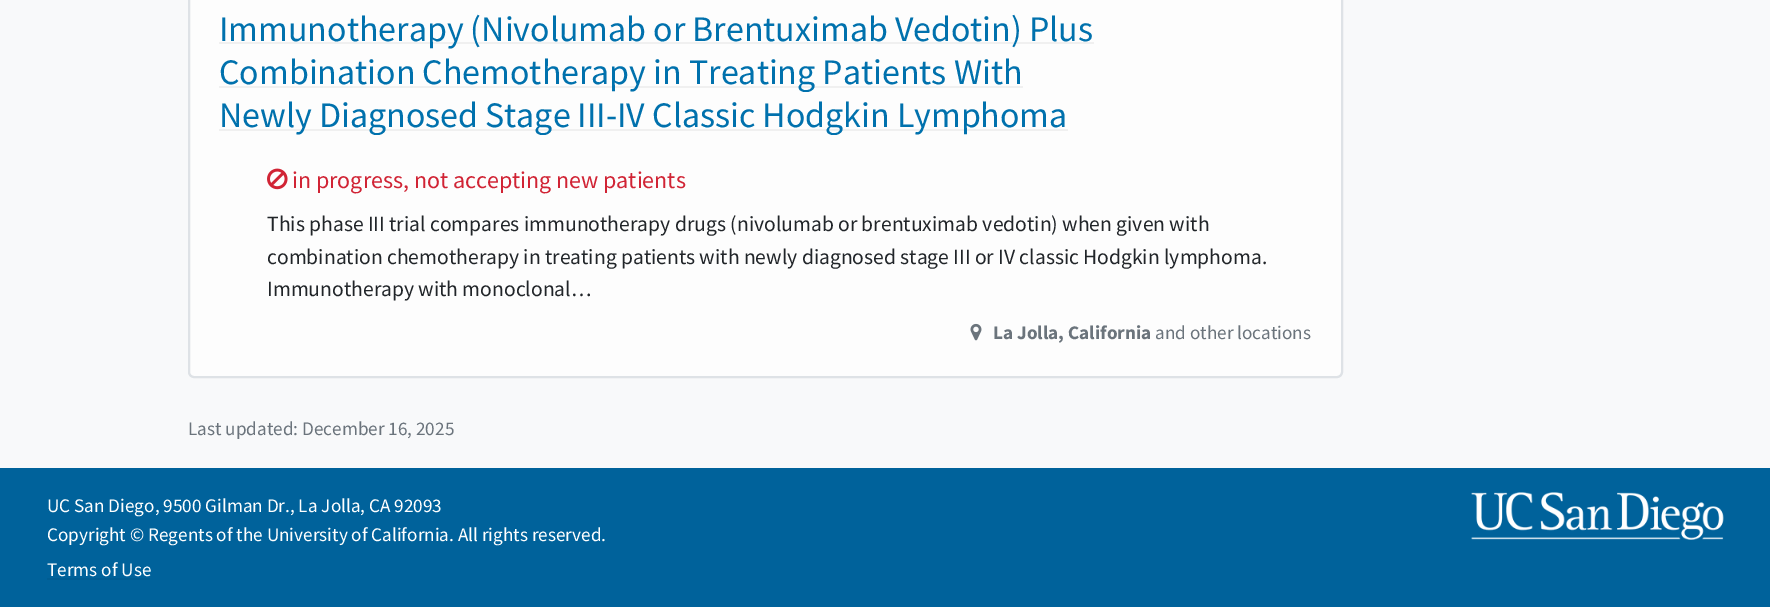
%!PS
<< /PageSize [1770 607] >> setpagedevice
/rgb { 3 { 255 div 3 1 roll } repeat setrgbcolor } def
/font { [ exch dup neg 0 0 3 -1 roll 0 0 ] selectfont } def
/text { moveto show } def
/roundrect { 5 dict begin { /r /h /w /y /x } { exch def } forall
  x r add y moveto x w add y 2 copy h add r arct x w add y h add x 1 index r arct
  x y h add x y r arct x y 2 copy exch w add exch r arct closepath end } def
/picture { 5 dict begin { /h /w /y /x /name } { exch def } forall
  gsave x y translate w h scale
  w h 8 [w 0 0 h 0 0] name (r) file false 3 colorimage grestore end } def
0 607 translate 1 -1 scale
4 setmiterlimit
248 249 250 rgb
0 0 1770 607 rectfill
253 253 253 rgb
189 -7 1153 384 5 roundrect gsave fill grestore
222 226 230 rgb
2 setlinewidth
stroke
240 240 240 rgb
219 42 875 2 rectfill
219 86 804 2 rectfill
219 129 849 2 rectfill
(img_01.rgb) 267 168 21 22 picture
(img_02.rgb) 970 323 12 18 picture
0 98 155 rgb
0 468 1770 139 rectfill
0 93 147 rgb
47 578 103 2 rectfill
(img_03.rgb) 1471 492 253 48 picture
/SourceSansPro-Regular 35.9 font
0 113 173 rgb
(Immunotherapy \(Nivolumab or Brentuximab Vedotin\) Plus) 219 41 text
(Combination Chemotherapy in Treating Patients With) 219 84 text
(Newly Diagnosed Stage III-IV Classic Hodgkin Lymphoma) 219 127 text
/SourceSansPro-Regular 24 font
209 36 53 rgb
(in progress, not accepting new patients) 292 188 text
/SourceSansPro-Regular 21.6 font
33 37 41 rgb
(This phase III trial compares immunotherapy drugs \(nivolumab or brentuximab vedotin\) when given with) 267 231 text
(combination chemotherapy in treating patients with newly diagnosed stage III or IV classic Hodgkin lymphoma.) 267 264 text
(Immunotherapy with monoclonal…) 267 296 text
/SourceSansPro-Bold 19.2 font
107 116 124 rgb
(La Jolla, California) 993 339 text
/SourceSansPro-Regular 19.2 font
(and other locations) 1155 339 text
(Last updated: December 16, 2025) 188 435 text
255 255 255 rgb
(UC San Diego, 9500 Gilman Dr., La Jolla, CA 92093) 47 512 text
(Copyright © Regents of the University of California. All rights reserved.) 47 541 text
(Terms of Use) 47 576 text
showpage
